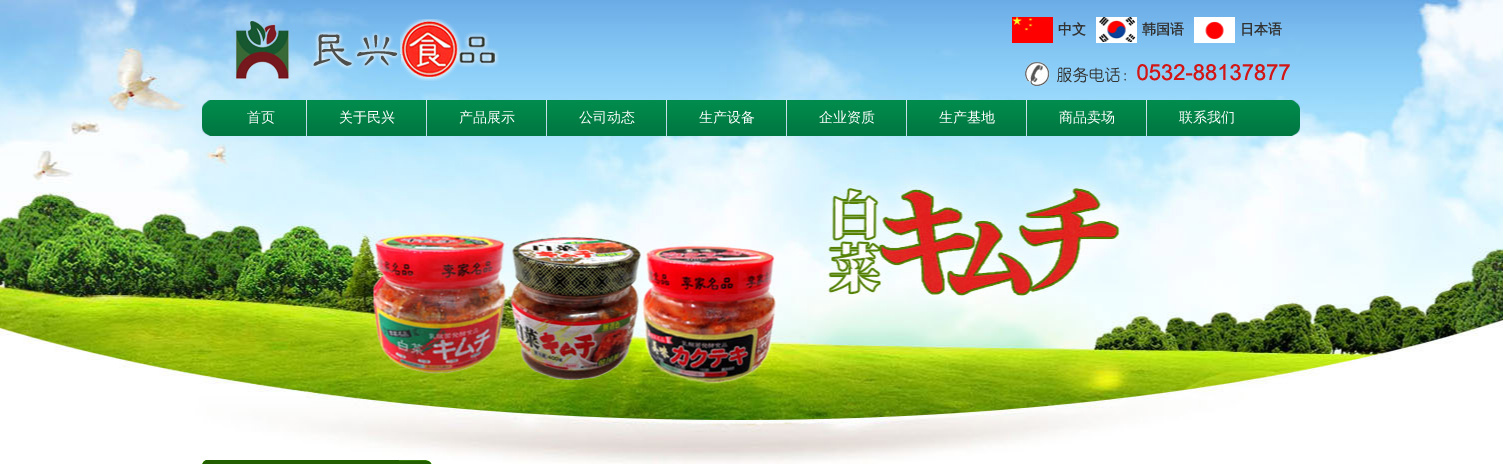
%!PS
<< /PageSize [1503 464] >> setpagedevice
/rgb { 3 { 255 div 3 1 roll } repeat setrgbcolor } def
/font { [ exch dup neg 0 0 3 -1 roll 0 0 ] selectfont } def
/text { moveto show } def
/picture { 5 dict begin { /h /w /y /x /name } { exch def } forall
  gsave x y translate w h scale
  w h 8 [w 0 0 h 0 0] name (r) file false 3 colorimage grestore end } def
0 464 translate 1 -1 scale
4 setmiterlimit
255 255 255 rgb
0 0 1503 464 rectfill
(img_01.rgb) 0 0 1503 464 picture
(img_02.rgb) 236 19 263 62 picture
(img_03.rgb) 1012 17 41 26 picture
(img_04.rgb) 1096 17 41 26 picture
(img_05.rgb) 1194 17 41 26 picture
(img_06.rgb) 1025 62 265 24 picture
(img_07.rgb) 202 100 8 36 picture
(img_08.rgb) 210 100 1082 36 picture
(img_09.rgb) 306 100 1 36 picture
(img_09.rgb) 426 100 1 36 picture
(img_09.rgb) 546 100 1 36 picture
(img_09.rgb) 666 100 1 36 picture
(img_09.rgb) 786 100 1 36 picture
(img_09.rgb) 906 100 1 36 picture
(img_09.rgb) 1026 100 1 36 picture
(img_09.rgb) 1146 100 1 36 picture
(img_10.rgb) 1292 100 8 36 picture
(img_11.rgb) 202 460 230 4 picture
/WenQuanYiZenHei-Bold 14 font
51 51 51 rgb
(中文) 1058 34 text
(韩国语) 1142 34 text
(日本语) 1240 34 text
/WenQuanYiZenHei-Medium 14 font
255 255 255 rgb
(首页) 247 122 text
(关于民兴) 339 122 text
(产品展示) 459 122 text
(公司动态) 579 122 text
(生产设备) 699 122 text
(企业资质) 819 122 text
(生产基地) 939 122 text
(商品卖场) 1059 122 text
(联系我们) 1179 122 text
showpage
